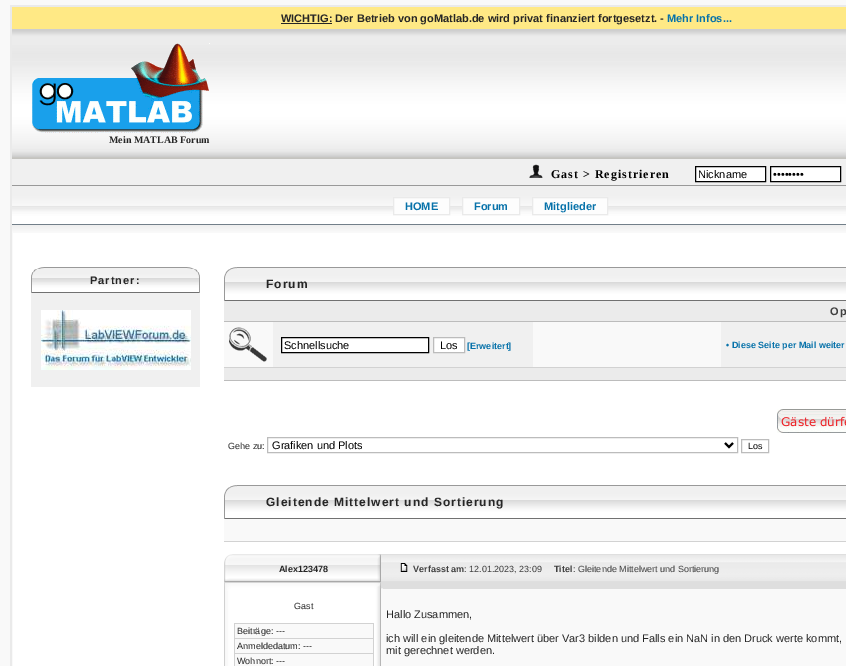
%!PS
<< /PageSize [846 666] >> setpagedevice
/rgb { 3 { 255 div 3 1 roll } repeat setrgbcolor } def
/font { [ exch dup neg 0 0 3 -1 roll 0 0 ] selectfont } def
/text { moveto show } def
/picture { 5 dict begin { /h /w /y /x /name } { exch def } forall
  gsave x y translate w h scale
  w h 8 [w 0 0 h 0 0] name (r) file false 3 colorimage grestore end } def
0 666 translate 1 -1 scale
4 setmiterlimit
249 249 249 rgb
0 0 846 666 rectfill
255 255 255 rgb
12 233 834 433 rectfill
234 234 234 rgb
2 setlinewidth
11 6 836 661 rectstroke
255 233 133 rgb
12 7 834 22 rectfill
38 38 38 rgb
281 23 51 1 rectfill
(img_01.rgb) 12 29 834 130 picture
(img_02.rgb) 32 43 178 90 picture
240 240 240 rgb
12 159 834 26 rectfill
(img_03.rgb) 529 164 14 14 picture
255 255 255 rgb
695.5 166.5 moveto 70 0 rlineto 0 15 rlineto -70 0 rlineto closepath gsave fill grestore
0 0 0 rgb
1 setlinewidth
stroke
255 255 255 rgb
770.5 166.5 moveto 70 0 rlineto 0 15 rlineto -70 0 rlineto closepath gsave fill grestore
0 0 0 rgb
stroke
(img_04.rgb) 12 185 834 40 picture
253 253 253 rgb
393.5 197.5 moveto 56 0 rlineto 0 17 rlineto -56 0 rlineto closepath gsave fill grestore
234 234 234 rgb
stroke
253 253 253 rgb
462.5 197.5 moveto 57 0 rlineto 0 17 rlineto -57 0 rlineto closepath gsave fill grestore
234 234 234 rgb
stroke
253 253 253 rgb
532.5 197.5 moveto 75 0 rlineto 0 17 rlineto -75 0 rlineto closepath gsave fill grestore
234 234 234 rgb
stroke
(img_05.rgb) 12 225 834 8 picture
(img_06.rgb) 31 267 14 26 picture
(img_07.rgb) 45 267 141 26 picture
(img_08.rgb) 186 267 14 26 picture
240 240 240 rgb
31 293 169 94 rectfill
(img_09.rgb) 41 310 150 60 picture
(img_10.rgb) 224 267 42 34 picture
(img_11.rgb) 266 267 580 34 picture
235 235 235 rgb
224 301 622 20 rectfill
188 188 188 rgb
224 321 622 1 rectfill
249 249 249 rgb
224 322 49 45 rectfill
(img_12.rgb) 229 327 38 35 picture
240 240 240 rgb
273 322 260 45 rectfill
255 255 255 rgb
281.5 337.5 moveto 147 0 rlineto 0 15 rlineto -147 0 rlineto closepath gsave fill grestore
0 0 0 rgb
stroke
255 255 255 rgb
433.5 337.5 moveto 31 0 rlineto 0 15 rlineto -31 0 rlineto closepath gsave fill grestore
188 188 188 rgb
stroke
249 249 249 rgb
533 322 188 45 rectfill
240 240 240 rgb
721 322 125 45 rectfill
210 210 210 rgb
224 367 622 1 rectfill
235 235 235 rgb
224 368 8 13 rectfill
188 188 188 rgb
224 380 622 1 rectfill
235 235 235 rgb
232 368 614 12 rectfill
(img_13.rgb) 777 409 69 24 picture
188 188 188 rgb
267.5 437.5 470 15 rectstroke
0 0 0 rgb
2 setlinewidth
725 443 moveto 4 4 rlineto 4 -4 rlineto stroke
188 188 188 rgb
1 setlinewidth
741.5 439.5 27 13 rectstroke
(img_10.rgb) 224 485 42 34 picture
(img_11.rgb) 266 485 580 34 picture
249 249 249 rgb
224 519 622 22 rectfill
210 210 210 rgb
224 541 622 1 rectfill
(img_14.rgb) 224 591 159 75 picture
(img_15.rgb) 224 554 159 37 picture
(img_16.rgb) 228 591 153 75 picture
234 623 140 1 rectfill
234 624 1 14 rectfill
249 249 249 rgb
235 624 138 14 rectfill
210 210 210 rgb
373 624 1 14 rectfill
234 638 140 1 rectfill
234 639 1 14 rectfill
249 249 249 rgb
235 639 138 14 rectfill
210 210 210 rgb
373 639 1 14 rectfill
234 653 140 1 rectfill
234 654 1 12 rectfill
249 249 249 rgb
235 654 138 12 rectfill
210 210 210 rgb
373 654 1 12 rectfill
249 249 249 rgb
383 589 463 77 rectfill
(img_17.rgb) 383 554 463 28 picture
(img_18.rgb) 400 563 8 9 picture
222 222 222 rgb
383 582 463 7 rectfill
/LiberationSans-Bold 11 font
38 38 38 rgb
(WICHTIG: Der Betrieb von goMatlab.de wird privat finanziert fortgesetzt. -) 281 22 text
7 114 170 rgb
(Mehr Infos...) 667 22 text
/LiberationSerif-Bold 10 font
38 38 38 rgb
(Mein MATLAB Forum) 109 143 text
/LiberationSerif-Bold 12 font
0 0 0 rgb
551 178 moveto 1 0 (Gast > Registrieren) ashow
/LiberationSans-Regular 11 font
(Nickname) 698 178 text
(••••••••) 773 178 text
/LiberationSans-Bold 11 font
7 114 170 rgb
(HOME) 405 210 text
(Forum) 474 210 text
(Mitglieder) 544 210 text
38 38 38 rgb
90 284 moveto 1 0 (Partner:) ashow
/LiberationSans-Bold 12 font
266 288 moveto 1 0 (Forum) ashow
/LiberationSans-Bold 11 font
64 64 64 rgb
830 315 moveto 1 0 (Op) ashow
/LiberationSans-Regular 11 font
0 0 0 rgb
(Schnellsuche) 284 349 text
(Los) 440 349 text
/LiberationSans-Bold 9 font
7 114 170 rgb
([Erweitert]) 467 349 text
(• Diese Seite per Mail weiter) 726 348 text
/LiberationSans-Regular 9 font
38 38 38 rgb
(Gehe zu:) 228 449 text
/LiberationSans-Regular 11 font
0 0 0 rgb
(Grafiken und Plots) 272 449 text
/LiberationSans-Regular 9 font
(Los) 748 449 text
/LiberationSans-Bold 12 font
38 38 38 rgb
266 506 moveto 1 0 (Gleitende Mittelwert und Sortierung) ashow
/LiberationSans-Bold 9 font
(Alex123478) 279 572 text
/LiberationSans-Regular 9 font
(Gast) 294 609 text
(Beiträge: ---) 237 634 text
(Anmeldedatum: ---) 237 649 text
(Wohnort: ---) 237 664 text
/LiberationSans-Bold 9 font
64 64 64 rgb
(Verfasst am) 413 572 text
/LiberationSans-Regular 9 font
(: 12.01.2023, 23:09) 464 572 text
/LiberationSans-Bold 9 font
(Titel) 554 572 text
/LiberationSans-Regular 9 font
(: Gleitende Mittelwert und Sortierung) 573 572 text
/LiberationSans-Regular 11 font
38 38 38 rgb
(Hallo Zusammen,) 386 618 text
(ich will ein gleitende Mittelwert über Var3 bilden und Falls ein NaN in den Druck werte kommt,) 386 642 text
(mit gerechnet werden.) 386 654 text
showpage
